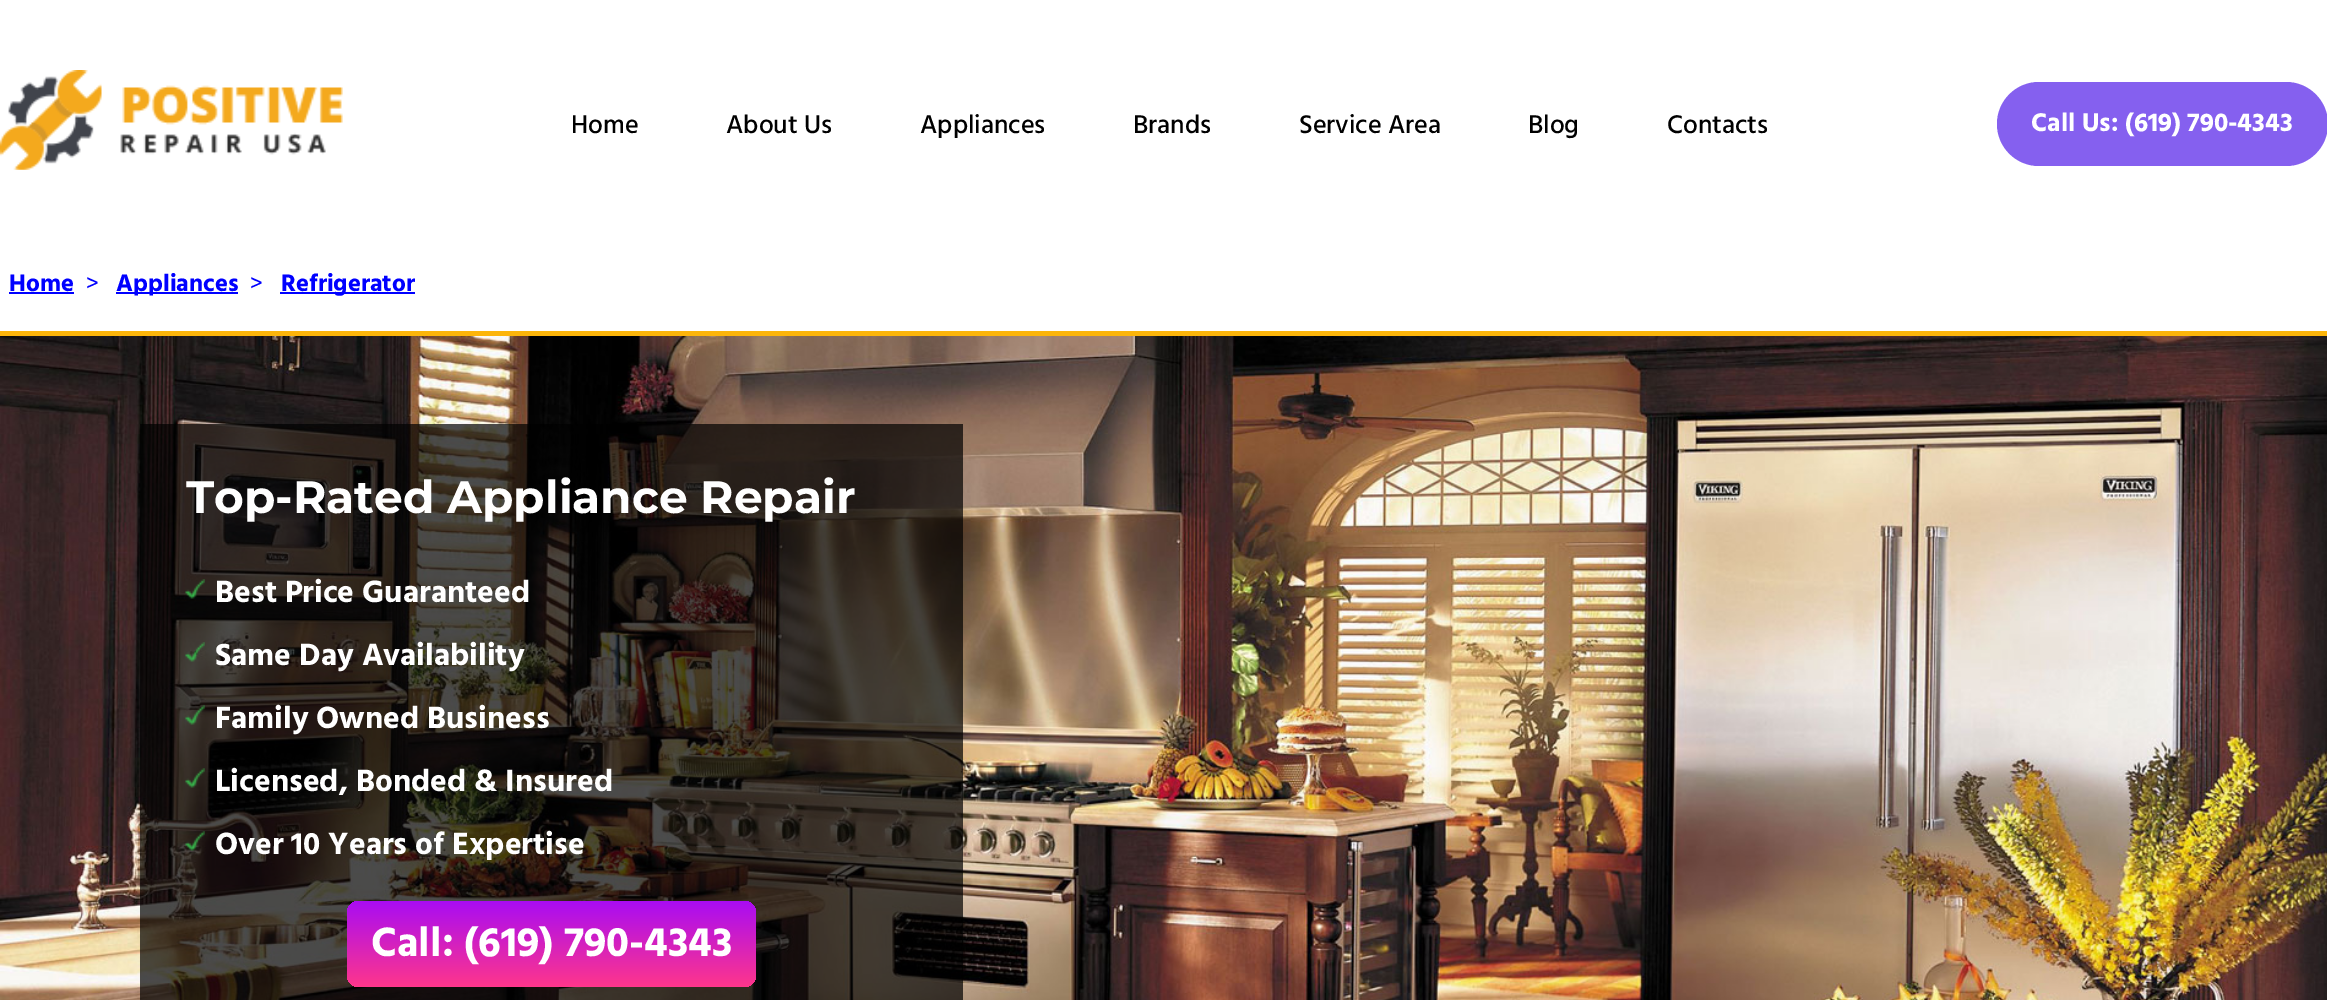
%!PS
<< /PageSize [2327 1000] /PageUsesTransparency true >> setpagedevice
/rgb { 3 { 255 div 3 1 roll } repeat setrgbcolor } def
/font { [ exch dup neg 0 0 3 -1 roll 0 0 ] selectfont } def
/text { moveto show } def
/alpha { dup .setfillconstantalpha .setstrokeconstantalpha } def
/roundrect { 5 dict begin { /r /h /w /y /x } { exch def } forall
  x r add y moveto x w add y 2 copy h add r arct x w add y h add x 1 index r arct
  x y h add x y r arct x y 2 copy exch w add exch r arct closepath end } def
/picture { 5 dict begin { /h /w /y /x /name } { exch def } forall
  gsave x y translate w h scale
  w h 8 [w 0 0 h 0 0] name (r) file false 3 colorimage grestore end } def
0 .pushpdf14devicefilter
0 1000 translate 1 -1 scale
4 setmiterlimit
255 255 255 rgb
0 0 2327 1000 rectfill
(img_01.rgb) 0 70 343 100 picture
133 96 239 rgb
1997 82 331 84 42 roundrect fill
0 0 255 rgb
9 292 65 2 rectfill
116 292 122 2 rectfill
280 292 135 2 rectfill
(img_02.rgb) 0 336 2327 664 picture
252 181 10 rgb
0 331 2327 5 rectfill
0.7 alpha
0 0 0 rgb
140 424 823 576 rectfill
1 alpha
(img_03.rgb) 185 579 20 20 picture
(img_04.rgb) 185 642 20 20 picture
(img_05.rgb) 185 705 20 20 picture
(img_06.rgb) 185 768 20 20 picture
(img_07.rgb) 185 831 20 20 picture
gsave 347 901 409 86 12 roundrect clip newpath
<< /ShadingType 2 /ColorSpace /DeviceRGB /Coords [551 901 551 987] /Extend [true true] /Function << /FunctionType 2 /Domain [0 1] /C0 [0.663 0.047 0.953] /C1 [1 0.212 0.545] /N 1 >> >> shfill grestore
/Hind-Medium 26.25 font
(Home) 571 133 text
(About Us) 726 133 text
(Appliances) 920 133 text
(Brands) 1133 133 text
(Service Area) 1299 133 text
(Blog) 1528 133 text
(Contacts) 1667 133 text
/Hind-Bold 26.25 font
255 255 255 rgb
(Call Us: \(619\) 790-4343) 2031 131 text
/Hind-Bold 24.5 font
0 0 255 rgb
(Home) 9 291 text
/Hind-Regular 24.5 font
(>) 86 291 text
/Hind-Bold 24.5 font
(Appliances) 116 291 text
/Hind-Regular 24.5 font
(>) 250 291 text
/Hind-Bold 24.5 font
(Refrigerator) 281 291 text
/Montserrat-Bold 45.5 font
255 255 255 rgb
(Top-Rated Appliance Repair) 186 513 text
/Hind-Bold 31.5 font
(Best Price Guaranteed) 215 602 text
(Same Day Availability) 215 665 text
(Family Owned Business) 215 728 text
(Licensed, Bonded & Insured) 215 791 text
(Over 10 Years of Expertise) 215 854 text
/Hind-Bold 42 font
(Call: \(619\) 790-4343) 371 956 text
.poppdf14devicefilter showpage
